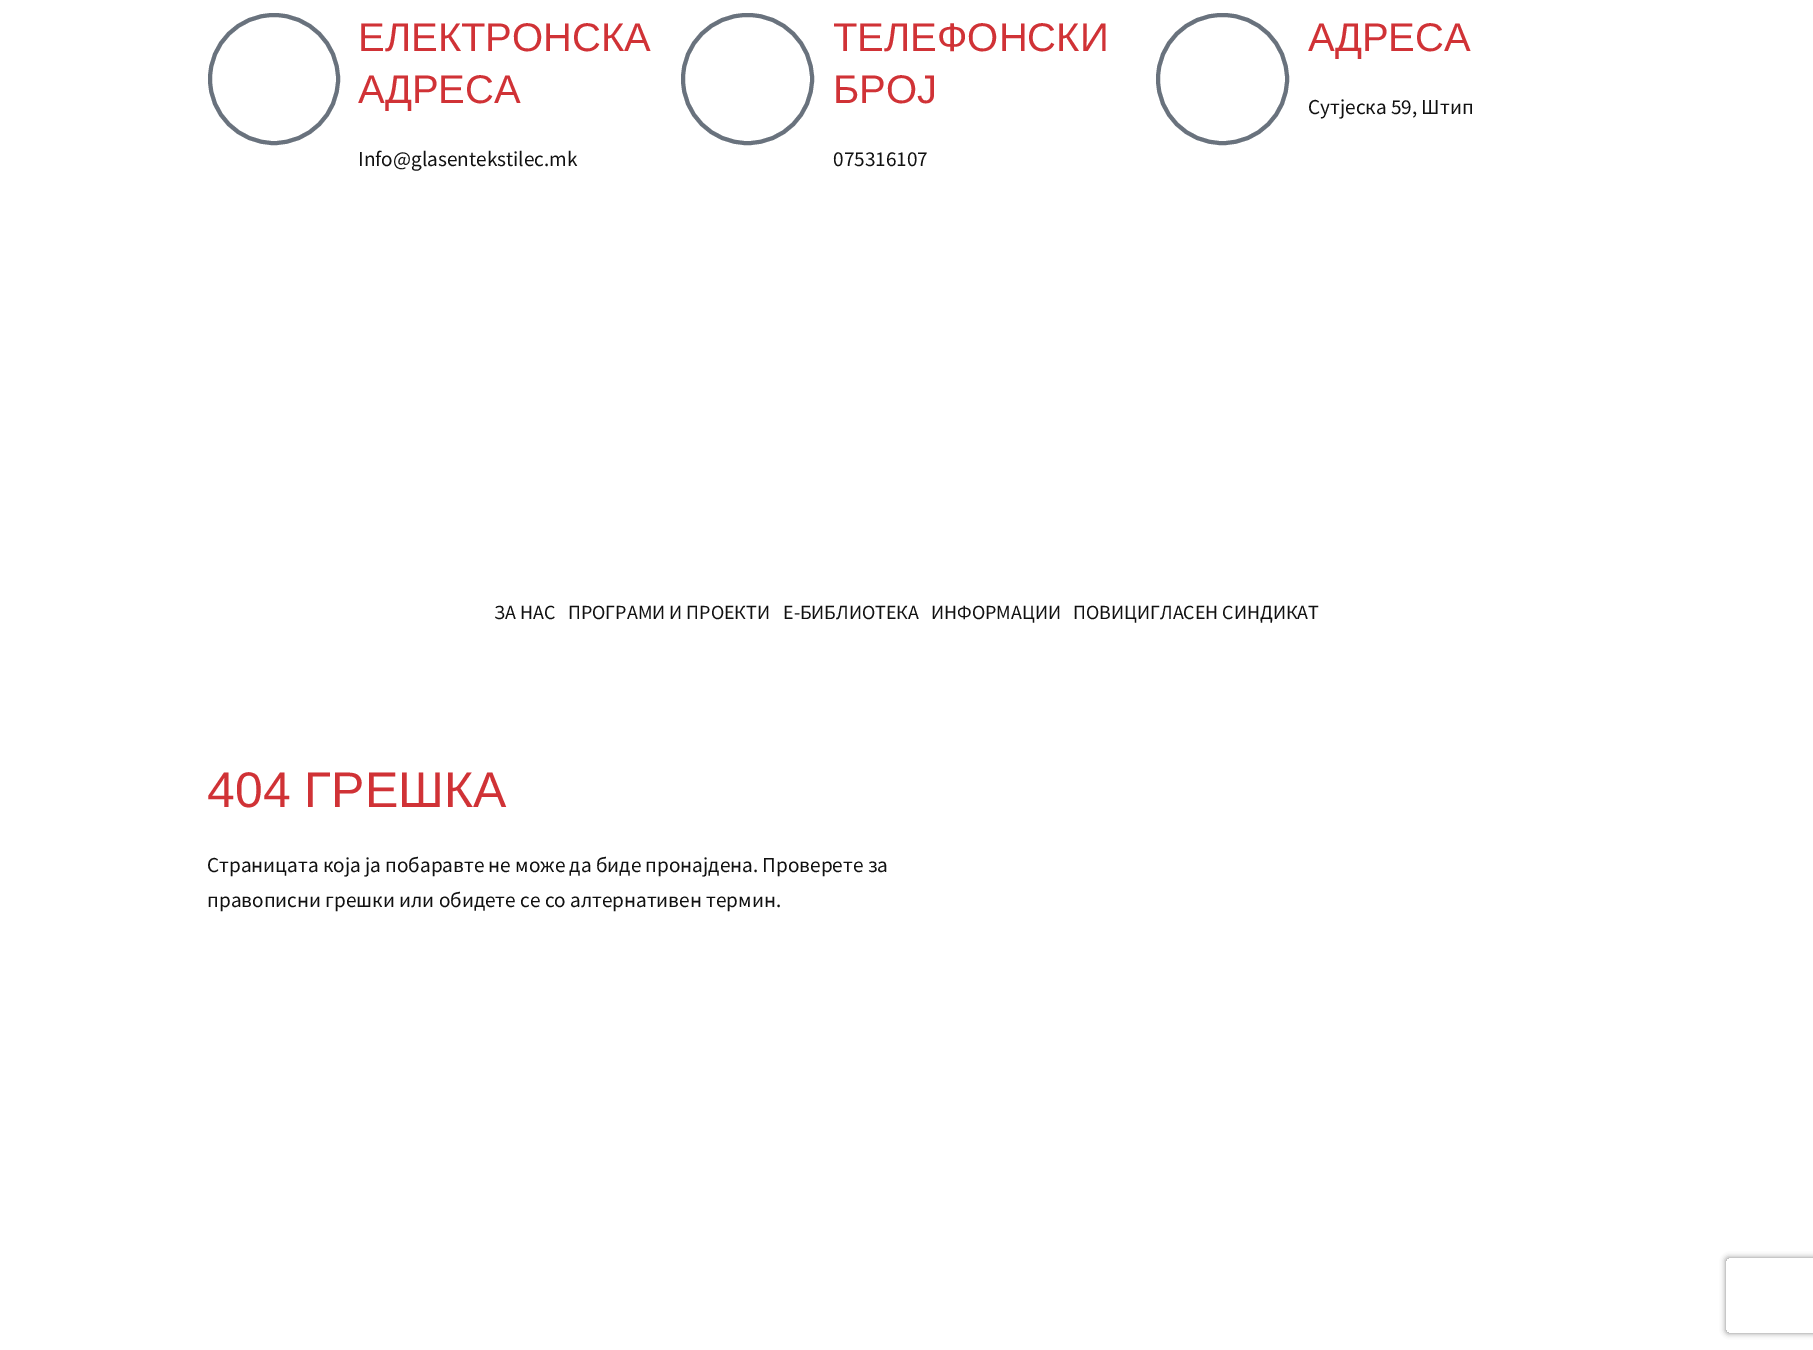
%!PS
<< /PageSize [1813 1350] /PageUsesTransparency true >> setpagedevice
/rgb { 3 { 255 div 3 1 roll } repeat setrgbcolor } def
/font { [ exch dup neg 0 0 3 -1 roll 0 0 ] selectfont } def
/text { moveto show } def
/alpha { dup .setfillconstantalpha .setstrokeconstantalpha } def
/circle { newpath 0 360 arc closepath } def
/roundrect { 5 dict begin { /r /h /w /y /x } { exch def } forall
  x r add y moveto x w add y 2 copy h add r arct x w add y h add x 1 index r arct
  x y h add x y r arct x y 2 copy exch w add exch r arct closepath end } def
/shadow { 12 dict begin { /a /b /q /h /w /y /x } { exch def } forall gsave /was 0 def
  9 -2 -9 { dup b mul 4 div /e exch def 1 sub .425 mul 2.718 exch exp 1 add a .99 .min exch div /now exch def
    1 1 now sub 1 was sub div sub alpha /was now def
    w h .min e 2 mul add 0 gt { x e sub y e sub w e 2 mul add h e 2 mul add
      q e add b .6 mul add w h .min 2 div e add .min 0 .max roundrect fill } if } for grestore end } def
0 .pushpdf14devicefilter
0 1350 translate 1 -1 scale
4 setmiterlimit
255 255 255 rgb
0 0 1813 1350 rectfill
105 114 125 rgb
4 setlinewidth
274 79 64 circle stroke
683 15 129 128 64 roundrect stroke
1158 15 129 128 64 roundrect stroke
gsave
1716 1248 moveto 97 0 rlineto 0 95 rlineto -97 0 rlineto closepath 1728.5 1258 moveto 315 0 rlineto 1.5 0 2.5 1 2.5 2.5 rcurveto 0 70 rlineto 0 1.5 -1 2.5 -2.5 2.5 rcurveto -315 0 rlineto -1.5 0 -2.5 -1 -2.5 -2.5 rcurveto 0 -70 rlineto 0 -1.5 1 -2.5 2.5 -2.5 rcurveto closepath eoclip newpath
128 128 128 rgb
1726 1258 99 75 2.5 3 1 shadow
grestore
/LiberationSans-Regular 40 font
208 50 54 rgb
(ЕЛЕКТРОНСКА) 358 51 text
(АДРЕСА) 358 103 text
/SourceSansPro-Regular 21.25 font
17 17 17 rgb
(Info@glasentekstilec.mk) 358 166 text
/LiberationSans-Regular 40 font
208 50 54 rgb
(ТЕЛЕФОНСКИ) 833 51 text
(БРОЈ) 833 103 text
/SourceSansPro-Regular 21.25 font
17 17 17 rgb
(075316107) 833 166 text
/LiberationSans-Regular 40 font
208 50 54 rgb
(АДРЕСА) 1308 51 text
/SourceSansPro-Regular 21.25 font
17 17 17 rgb
(Сутјеска 59, Штип) 1308 114 text
/SourceSansPro-Regular 20 font
(ЗА НАС) 494 619 text
(ПРОГРАМИ И ПРОЕКТИ) 568 619 text
(Е-БИБЛИОТЕКА) 783 619 text
(ИНФОРМАЦИИ) 931 619 text
(ПОВИЦИГЛАСЕН СИНДИКАТ) 1073 619 text
/LiberationSans-Regular 50 font
208 50 54 rgb
(404 ГРЕШКА) 207 807 text
/SourceSansPro-Regular 21.25 font
17 17 17 rgb
(Страницата која ја побаравте не може да биде пронајдена. Проверете за) 207 872 text
(правописни грешки или обидете се со алтернативен термин.) 207 907 text
.poppdf14devicefilter showpage
